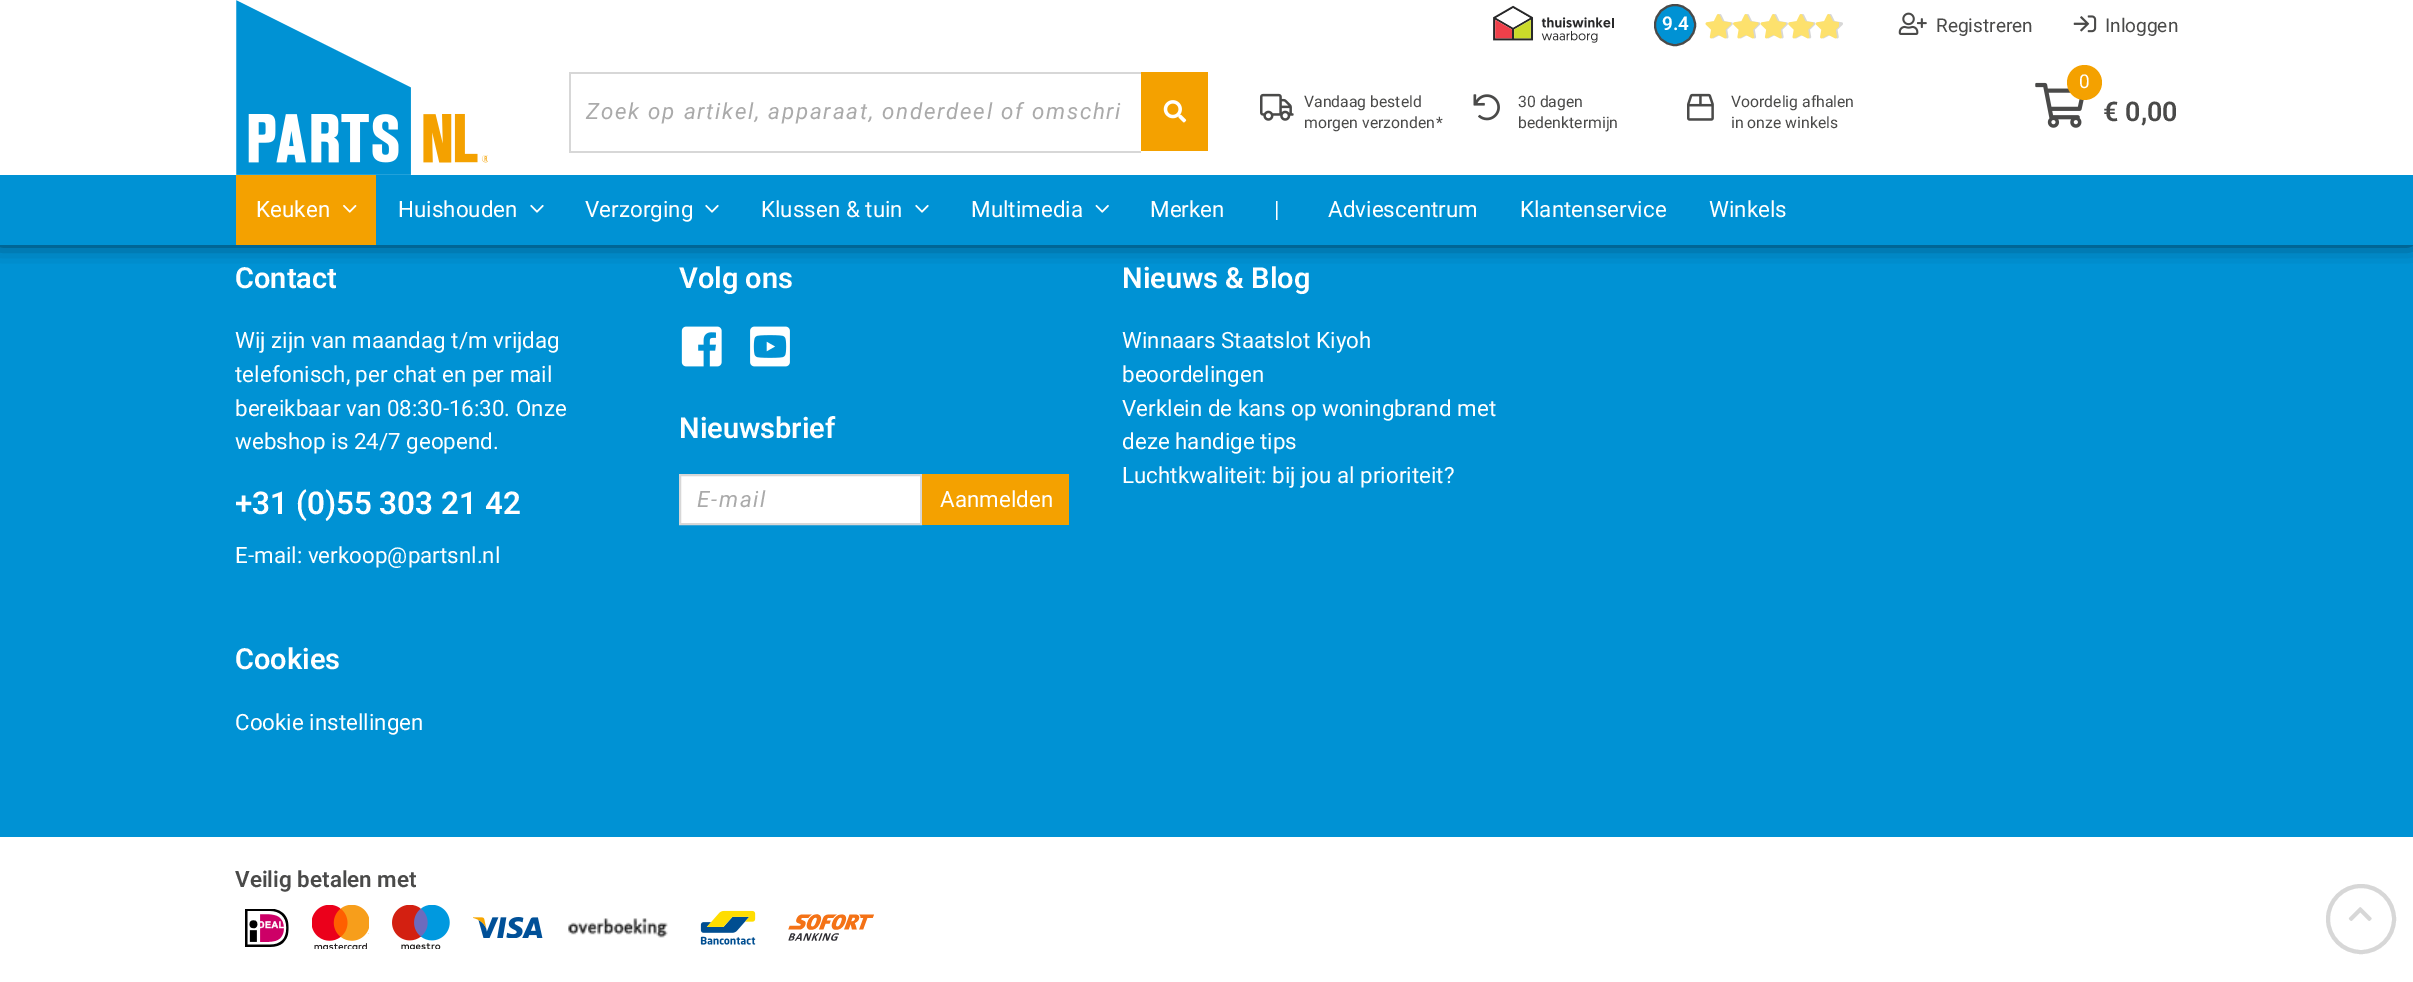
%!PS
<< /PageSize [2413 982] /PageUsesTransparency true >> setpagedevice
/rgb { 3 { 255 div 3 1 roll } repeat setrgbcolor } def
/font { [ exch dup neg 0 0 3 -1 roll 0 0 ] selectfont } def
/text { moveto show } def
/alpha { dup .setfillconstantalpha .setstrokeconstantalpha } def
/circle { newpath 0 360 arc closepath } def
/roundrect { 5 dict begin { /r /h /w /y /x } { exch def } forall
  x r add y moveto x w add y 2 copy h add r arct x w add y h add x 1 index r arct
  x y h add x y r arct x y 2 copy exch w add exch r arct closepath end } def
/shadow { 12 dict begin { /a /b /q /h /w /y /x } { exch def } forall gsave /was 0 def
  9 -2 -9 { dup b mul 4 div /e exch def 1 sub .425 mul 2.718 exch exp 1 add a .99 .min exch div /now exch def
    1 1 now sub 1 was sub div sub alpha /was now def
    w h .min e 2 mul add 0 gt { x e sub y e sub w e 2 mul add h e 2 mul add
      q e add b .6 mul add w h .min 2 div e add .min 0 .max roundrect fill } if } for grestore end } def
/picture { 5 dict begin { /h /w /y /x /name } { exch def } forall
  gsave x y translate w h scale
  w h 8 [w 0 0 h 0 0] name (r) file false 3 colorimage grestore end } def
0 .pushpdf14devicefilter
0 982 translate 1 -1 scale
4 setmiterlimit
255 255 255 rgb
0 0 2413 982 rectfill
0 146 212 rgb
0 245 2413 592 rectfill
0 0 0 rgb
-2 -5 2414 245 0 10.5 1 shadow
255 255 255 rgb
0 0 2413 175 rectfill
(img_01.rgb) 236 0 252 175 picture
(img_02.rgb) 1493 5 121 38 picture
0 146 212 rgb
1675 25 20 circle gsave fill grestore
74 74 73 rgb
2 setlinewidth
stroke
(img_04.rgb) 1707 14 136 25 picture
(img_03.rgb) 1705 14 134 25 picture
(img_05.rgb) 1898 12 29 23 picture
(img_06.rgb) 2073 15 24 18 picture
215 215 215 rgb
569 72 572 2 rectfill
569 151 572 2 rectfill
569 72 2 80 rectfill
244 161 0 rgb
1141 72 67 79 rectfill
(img_07.rgb) 1163 100 24 23 picture
(img_08.rgb) 1260 93 34 28 picture
(img_09.rgb) 1473 94 27 27 picture
(img_10.rgb) 1687 93 27 28 picture
(img_11.rgb) 2035 82 49 46 picture
2084.5 82.5 17.5 circle fill
0 146 212 rgb
0 175 2413 70 rectfill
244 161 0 rgb
236 175 140 70 rectfill
(img_12.rgb) 343 205 14 8 picture
(img_13.rgb) 530 204 14 9 picture
(img_13.rgb) 705 204 14 9 picture
(img_13.rgb) 915 204 14 9 picture
(img_14.rgb) 1095 204 14 9 picture
(img_15.rgb) 681 326 41 41 picture
(img_16.rgb) 750 326 40 41 picture
255 255 255 rgb
680 475 moveto 241 0 rlineto 0 49 rlineto -241 0 rlineto closepath gsave fill grestore
215 215 215 rgb
stroke
244 161 0 rgb
922 474 147 51 rectfill
(img_17.rgb) 245 909 44 38 picture
(img_18.rgb) 312 905 57 44 picture
(img_19.rgb) 392 905 58 44 picture
(img_20.rgb) 473 917 70 21 picture
(img_21.rgb) 568 918 100 20 picture
(img_22.rgb) 700 910 56 35 picture
(img_23.rgb) 788 914 86 27 picture
215 215 215 rgb
4 setlinewidth
2361 919 33 circle stroke
(img_24.rgb) 2348 907 24 14 picture
/Roboto-SemiBold 19 font
255 255 255 rgb
(9.4) 1662 30 text
/Roboto-Regular 19 font
74 74 73 rgb
(Registreren) 1936 32 text
(Inloggen) 2105 32 text
/Roboto-Italic 22.4 font
170 170 170 rgb
586 119 moveto 1.75 0 (Zoek op artikel, apparaat, onderdeel of omschri) ashow
/Roboto-Regular 15.75 font
74 74 73 rgb
(Vandaag besteld) 1304 107 text
(morgen verzonden) 1304 128 text
(*) 1436 128 text
(30 dagen) 1518 107 text
(bedenktermijn) 1518 128 text
(Voordelig afhalen) 1731 107 text
(in onze winkels) 1731 128 text
/Roboto-Regular 19 font
255 255 255 rgb
(0) 2079 88 text
/Roboto-SemiBold 27 font
74 74 73 rgb
(€ 0,00) 2103 121 text
/Roboto-Regular 22.4 font
255 255 255 rgb
(Keuken) 256 217 text
(Huishouden) 398 217 text
(Verzorging) 585 217 text
(Klussen & tuin) 761 217 text
(Multimedia) 971 217 text
(Merken) 1150 217 text
(|) 1274 217 text
(Adviescentrum) 1328 217 text
(Klantenservice) 1520 217 text
(Winkels) 1709 217 text
/Roboto-SemiBold 29 font
(Contact) 235 288 text
/Roboto-Regular 22.4 font
(Wij zijn van maandag t/m vrijdag) 235 348 text
(telefonisch, per chat en per mail) 235 382 text
(bereikbaar van 08:30-16:30. Onze) 235 416 text
(webshop is 24/7 geopend.) 235 449 text
/Roboto-SemiBold 31.4 font
(+31 \(0\)55 303 21 42) 235 514 text
/Roboto-Regular 22.4 font
(E-mail: verkoop@partsnl.nl) 235 563 text
/Roboto-SemiBold 29 font
(Cookies) 235 669 text
/Roboto-Regular 22.4 font
(Cookie instellingen) 235 730 text
/Roboto-SemiBold 29 font
(Volg ons) 679 288 text
(Nieuwsbrief) 679 438 text
/Roboto-Italic 22.4 font
170 170 170 rgb
697 507 moveto 1.75 0 (E-mail) ashow
/Roboto-Regular 22.4 font
255 255 255 rgb
(Aanmelden) 940 507 text
/Roboto-SemiBold 29 font
(Nieuws & Blog) 1122 288 text
/Roboto-Regular 22.4 font
(Winnaars Staatslot Kiyoh) 1122 348 text
(beoordelingen) 1122 382 text
(Verklein de kans op woningbrand met) 1122 416 text
(deze handige tips) 1122 449 text
(Luchtkwaliteit: bij jou al prioriteit?) 1122 483 text
/Roboto-SemiBold 22.4 font
74 74 73 rgb
(Veilig betalen met) 235 887 text
.poppdf14devicefilter showpage
